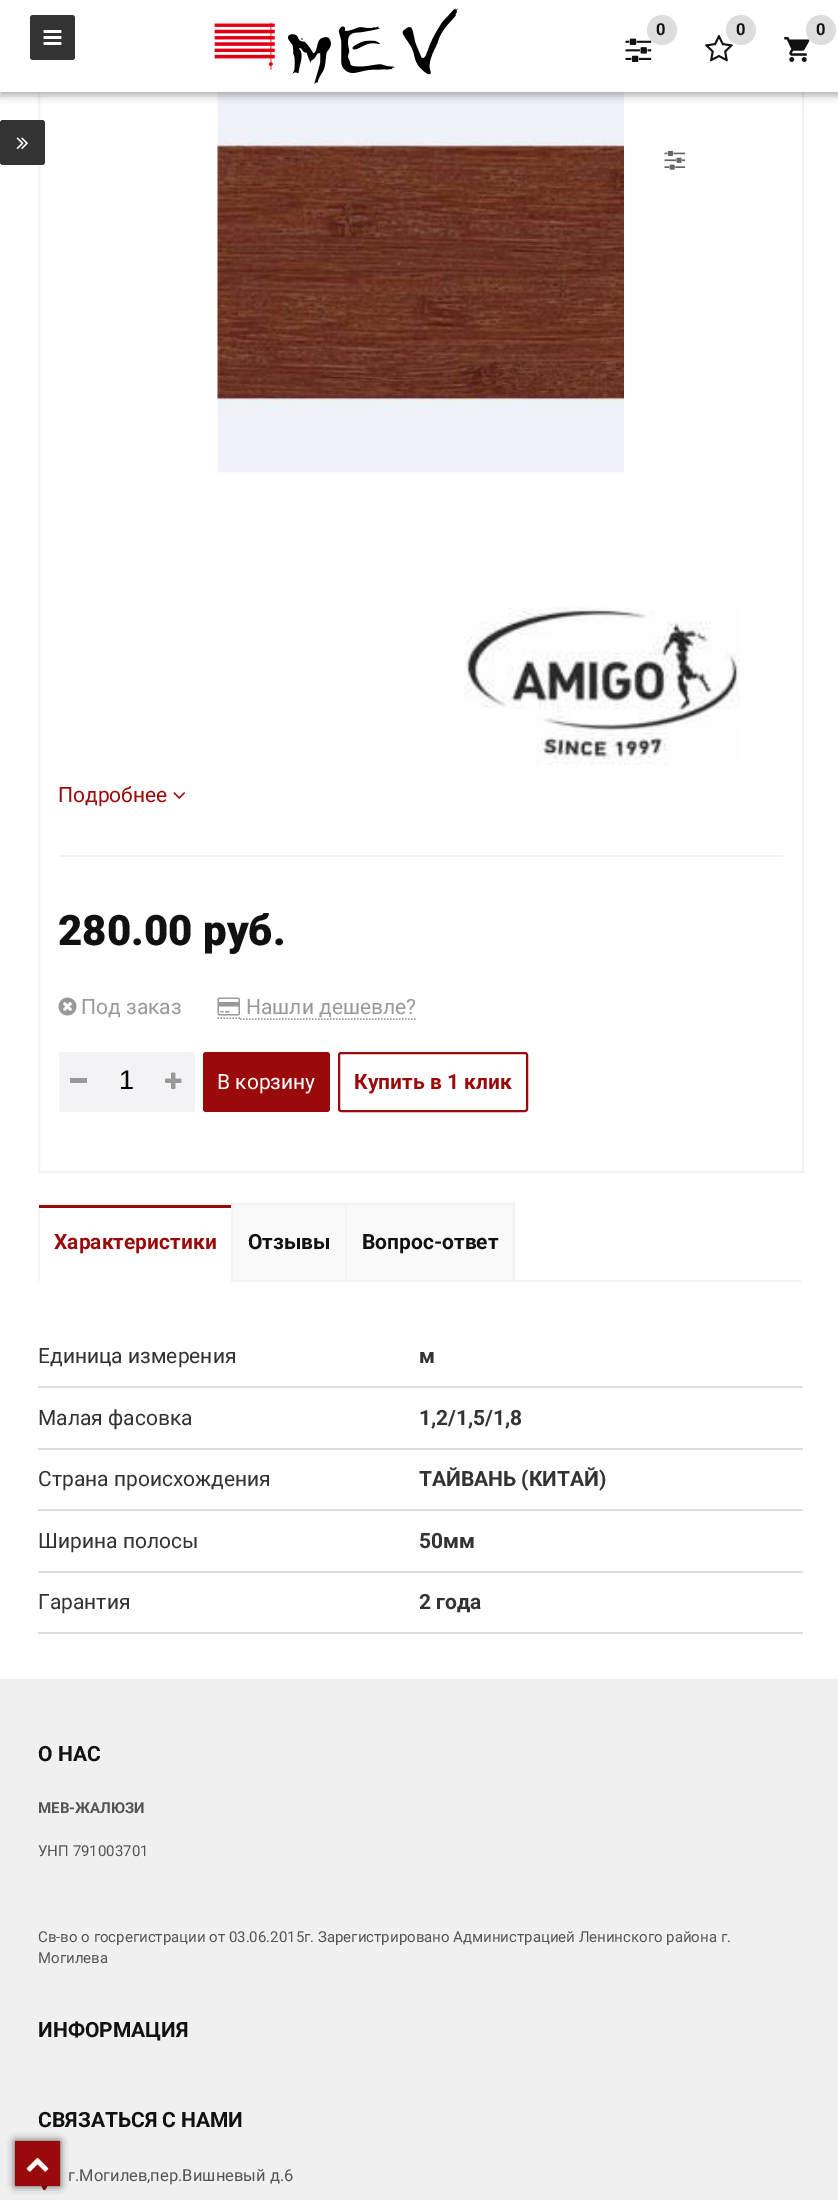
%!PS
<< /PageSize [838 2200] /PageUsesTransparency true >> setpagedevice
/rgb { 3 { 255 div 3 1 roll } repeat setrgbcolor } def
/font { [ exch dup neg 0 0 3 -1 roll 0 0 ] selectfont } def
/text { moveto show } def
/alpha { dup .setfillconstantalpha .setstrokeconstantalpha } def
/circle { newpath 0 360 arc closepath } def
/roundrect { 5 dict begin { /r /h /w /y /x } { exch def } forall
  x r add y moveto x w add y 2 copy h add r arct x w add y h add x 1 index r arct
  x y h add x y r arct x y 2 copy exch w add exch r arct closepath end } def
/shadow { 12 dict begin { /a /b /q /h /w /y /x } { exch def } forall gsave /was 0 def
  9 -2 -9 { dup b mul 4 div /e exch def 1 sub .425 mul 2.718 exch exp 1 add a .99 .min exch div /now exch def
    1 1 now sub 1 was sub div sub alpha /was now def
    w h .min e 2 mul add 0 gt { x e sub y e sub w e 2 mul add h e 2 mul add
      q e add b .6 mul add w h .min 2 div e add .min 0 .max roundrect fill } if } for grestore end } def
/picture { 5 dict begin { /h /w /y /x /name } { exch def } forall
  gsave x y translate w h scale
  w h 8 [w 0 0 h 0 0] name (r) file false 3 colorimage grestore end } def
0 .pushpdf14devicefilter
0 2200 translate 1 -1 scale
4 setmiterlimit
255 255 255 rgb
0 0 838 2200 rectfill
242 242 242 rgb
2 setlinewidth
39 -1 764 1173 rectstroke
(img_07.rgb) 217 92 407 381 picture
0 0 0 rgb
0 5 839 91 0 4 0.3 shadow
255 255 255 rgb
0 0 838 92 rectfill
51 51 51 rgb
30 15 45 45 3 roundrect fill
(img_01.rgb) 43 30 19 15 picture
(img_02.rgb) 214 8 245 76 picture
(img_03.rgb) 625 38 27 24 picture
221 221 221 rgb
662 30 15 circle fill
(img_04.rgb) 705 34 28 28 picture
741 30 15 circle fill
(img_05.rgb) 784 37 26 25 picture
821 30 15 circle fill
51 51 51 rgb
0 120 45 45 3 roundrect fill
(img_06.rgb) 16 137 12 12 picture
(img_08.rgb) 664 150 22 20 picture
(img_09.rgb) 464 607 276 158 picture
242 242 242 rgb
59 855 724 2 rectfill
(img_10.rgb) 173 792 12 7 picture
(img_11.rgb) 58 997 19 19 picture
153 153 153 rgb
1.5 setlinewidth
[1.5 1.5] 0 setdash
217.5 1018 moveto 22.5 0 rlineto stroke
240 1019 moveto 175.5 0 rlineto stroke
(img_12.rgb) 217 997 23 19 picture
243 243 245 rgb
59 1052 136 60 3 roundrect fill
153 153 153 rgb
70 1078 17 5 rectfill
(img_13.rgb) 165 1072 17 17 picture
155 10 10 rgb
203 1052 127 60 3 roundrect fill
2 setlinewidth
[] 0 setdash
339 1053 188 58 2 roundrect stroke
242 242 242 rgb
38 1280 763 2 rectfill
38 1203 477 2 rectfill
38 1203 2 77 rectfill
155 10 10 rgb
39 1205 192 3 rectfill
255 255 255 rgb
39 1280 192 2 rectfill
249 249 250 rgb
233 1205 112 75 rectfill
242 242 242 rgb
231 1203 2 77 rectfill
249 249 250 rgb
347 1205 166 75 rectfill
242 242 242 rgb
513 1203 2 77 rectfill
345 1203 2 77 rectfill
221 221 221 rgb
38 1386 765 2 rectfill
38 1448 765 2 rectfill
38 1509 765 2 rectfill
38 1571 765 2 rectfill
38 1632 765 2 rectfill
240 240 240 rgb
0 1679 838 521 rectfill
(img_15.rgb) 41 2186 7 5 picture
0 0 0 rgb
15 2141 45 45 0 4 0.7 shadow
155 10 10 rgb
15 2141 45 45 rectfill
(img_14.rgb) 26 2157 23 15 picture
/Roboto-Bold 16.5 font
17 17 17 rgb
(0) 656 35 text
(0) 736 35 text
(0) 816 35 text
/Roboto-Regular 21 font
155 10 10 rgb
(Подробнее) 58 802 text
/Roboto-Black 42 font
17 17 17 rgb
(280.00 руб.) 58 945 text
/Roboto-Regular 21 font
153 153 153 rgb
(Под заказ) 81 1014 text
(Нашли дешевле?) 246 1014 text
/LiberationSans-Regular 27 font
0 0 0 rgb
(1) 119 1089 text
/Roboto-Regular 21 font
255 255 255 rgb
(В корзину) 217 1089 text
/Roboto-Bold 21 font
155 10 10 rgb
(Купить в 1 клик) 354 1089 text
(Характеристики) 54 1249 text
17 17 17 rgb
(Отзывы) 248 1249 text
(Вопрос-ответ) 362 1249 text
/Roboto-Regular 21 font
51 51 51 rgb
(Единица измерения) 38 1363 text
/Roboto-Bold 21 font
(м) 419 1363 text
/Roboto-Regular 21 font
(Малая фасовка) 38 1425 text
/Roboto-Bold 21 font
(1,2/1,5/1,8) 419 1425 text
/Roboto-Regular 21 font
(Страна происхождения) 38 1486 text
/Roboto-Bold 21 font
(ТАЙВАНЬ \(КИТАЙ\)) 419 1486 text
/Roboto-Regular 21 font
(Ширина полосы) 38 1548 text
/Roboto-Bold 21 font
(50мм) 419 1548 text
/Roboto-Regular 21 font
(Гарантия) 38 1609 text
/Roboto-Bold 21 font
(2 года) 419 1609 text
17 17 17 rgb
(О НАС) 38 1761 text
/Roboto-Bold 15 font
85 85 85 rgb
(МЕВ-ЖАЛЮЗИ) 38 1813 text
/Roboto-Regular 15 font
(УНП 791003701) 38 1856 text
(Св-во о госрегистрации от 03.06.2015г. Зарегистрировано Администрацией Ленинского района г.) 38 1942 text
(Могилева) 38 1963 text
/Roboto-Bold 21 font
17 17 17 rgb
(ИНФОРМАЦИЯ) 38 2037 text
(СВЯЗАТЬСЯ С НАМИ) 38 2127 text
/Roboto-Regular 16.5 font
85 85 85 rgb
(г.Могилев,пер.Вишневый д.6) 68 2181 text
.poppdf14devicefilter showpage
